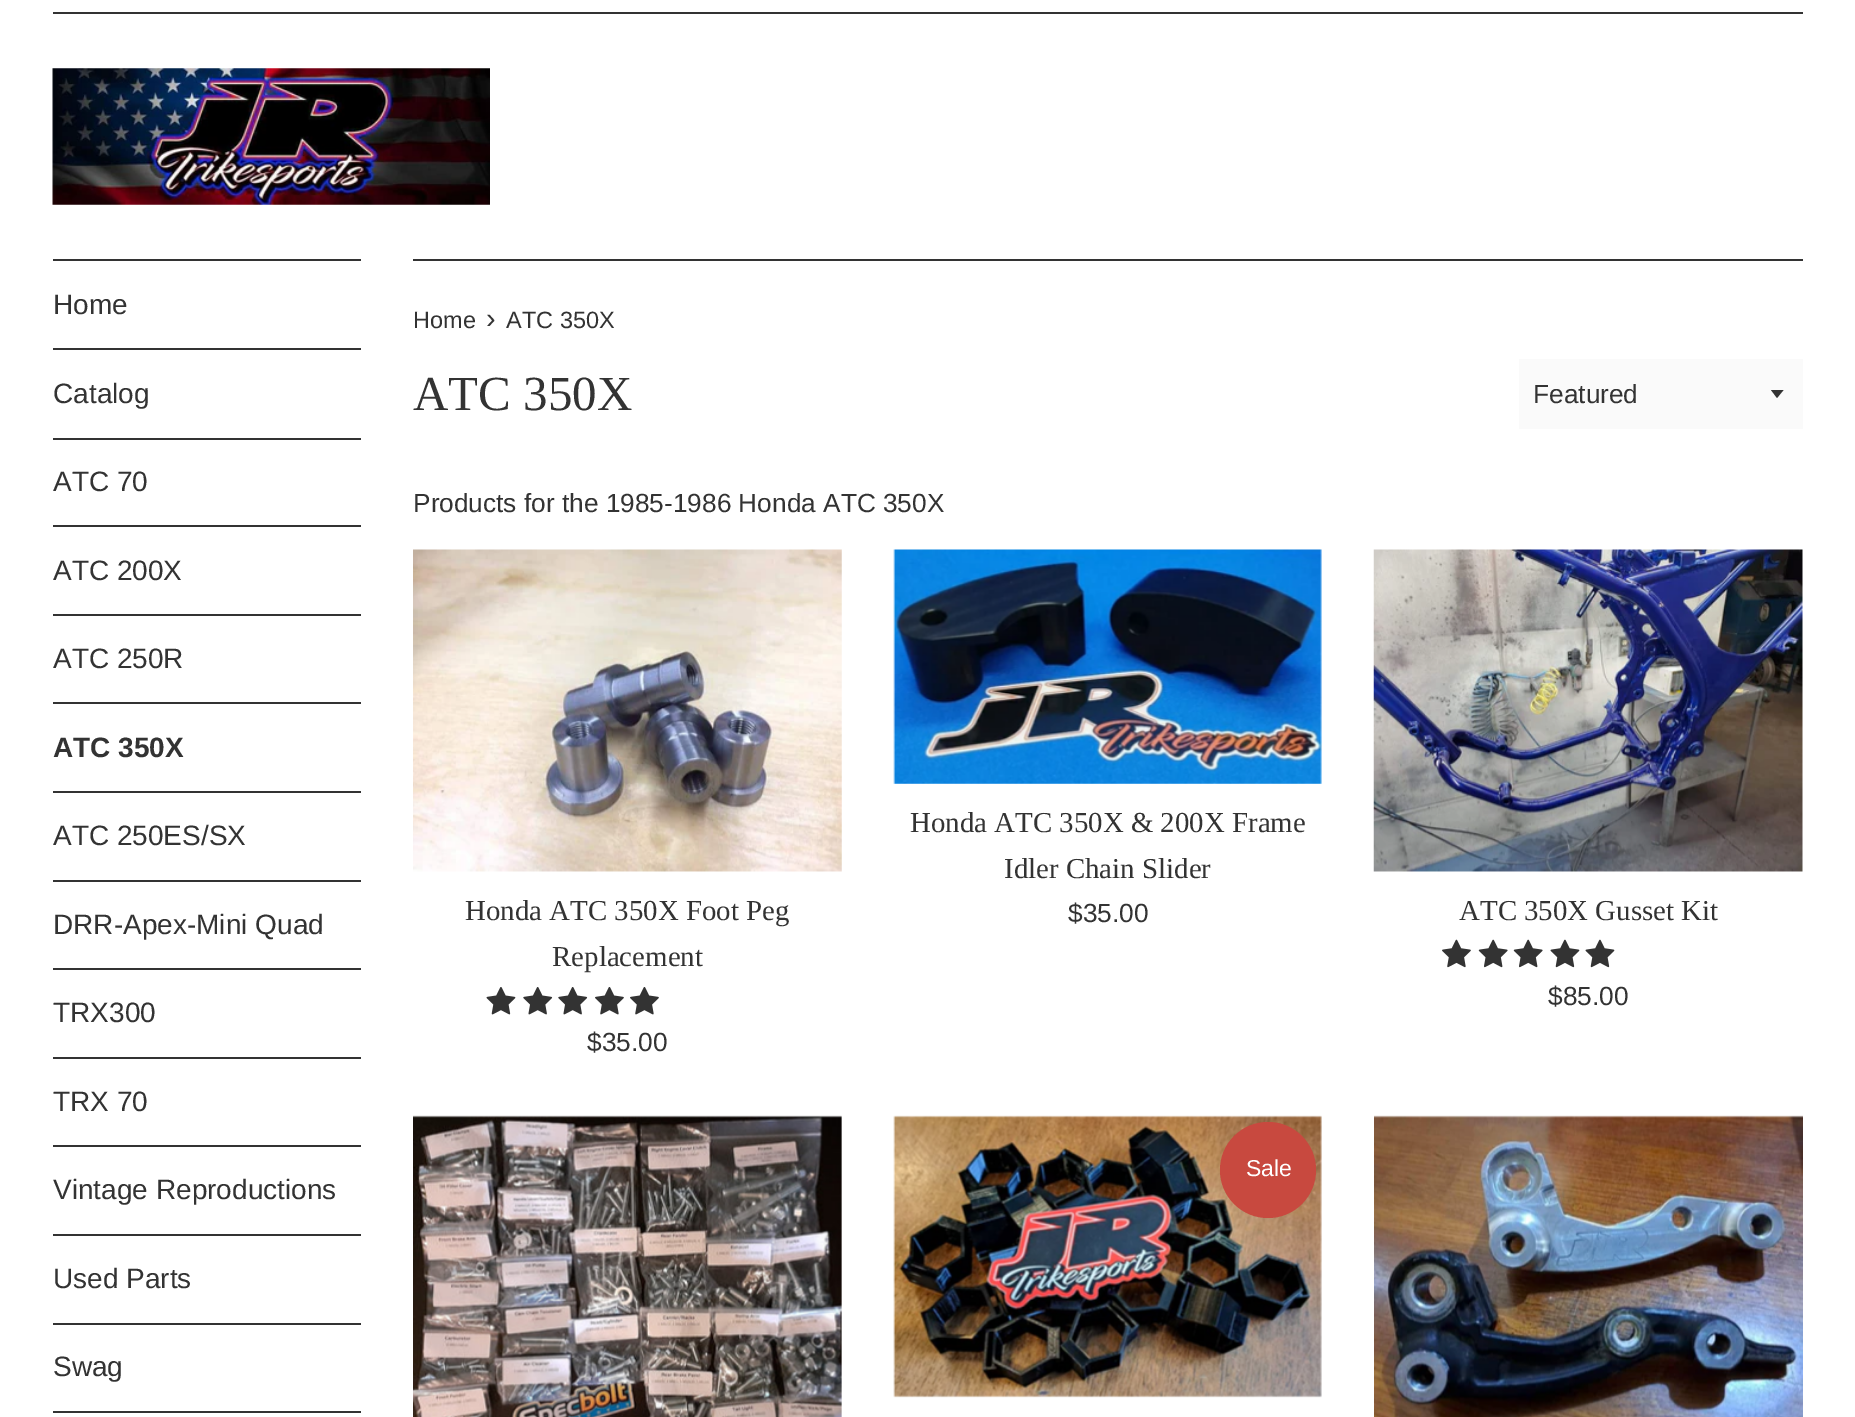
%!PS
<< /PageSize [1855 1417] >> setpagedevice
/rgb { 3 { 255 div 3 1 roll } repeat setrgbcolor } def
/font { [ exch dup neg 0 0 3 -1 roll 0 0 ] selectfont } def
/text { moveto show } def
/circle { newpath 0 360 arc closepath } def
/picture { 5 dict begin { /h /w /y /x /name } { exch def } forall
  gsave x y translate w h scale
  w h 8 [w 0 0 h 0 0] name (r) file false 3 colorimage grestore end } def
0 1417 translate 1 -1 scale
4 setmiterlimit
255 255 255 rgb
0 0 1855 1417 rectfill
51 51 51 rgb
53 12 1750 2 rectfill
(img_01.rgb) 52 68 438 137 picture
53 259 308 2 rectfill
53 348 308 2 rectfill
53 438 308 2 rectfill
53 525 308 2 rectfill
53 614 308 2 rectfill
53 702 308 2 rectfill
53 791 308 2 rectfill
53 880 308 2 rectfill
53 968 308 2 rectfill
53 1057 308 2 rectfill
53 1145 308 2 rectfill
53 1234 308 2 rectfill
53 1323 308 2 rectfill
53 1411 308 2 rectfill
413 259 1390 2 rectfill
250 250 250 rgb
1519 359 284 70 rectfill
51 51 51 rgb
1771 390 moveto 6 8 rlineto 6.5 -8 rlineto closepath fill
(img_02.rgb) 893 549 429 235 picture
(img_03.rgb) 413 549 429 323 picture
(img_04.rgb) 486 987 30 28 picture
(img_05.rgb) 523 987 30 28 picture
(img_05.rgb) 558 987 30 28 picture
(img_06.rgb) 595 987 29 28 picture
(img_06.rgb) 630 987 29 28 picture
(img_07.rgb) 1373 549 430 323 picture
(img_08.rgb) 1442 939 29 29 picture
(img_09.rgb) 1478 939 30 29 picture
(img_09.rgb) 1513 939 30 29 picture
(img_10.rgb) 1550 939 30 29 picture
(img_10.rgb) 1585 939 30 29 picture
(img_11.rgb) 413 1115 429 302 picture
(img_12.rgb) 893 1115 429 283 picture
200 73 63 rgb
1268 1170 48 circle fill
(img_13.rgb) 1374 1115 429 302 picture
/LiberationSans-Regular 28 font
51 51 51 rgb
(Home) 53 314 text
(Catalog) 53 403 text
(ATC 70) 53 491 text
(ATC 200X) 53 580 text
(ATC 250R) 53 668 text
/LiberationSans-Bold 28 font
(ATC 350X) 53 757 text
/LiberationSans-Regular 28 font
(ATC 250ES/SX) 53 845 text
(DRR-Apex-Mini Quad) 53 934 text
(TRX300) 53 1022 text
(TRX 70) 53 1111 text
(Vintage Reproductions) 53 1199 text
(Used Parts) 53 1288 text
(Swag) 53 1376 text
/LiberationSans-Regular 23.5 font
(Home) 413 328 text
/LiberationSans-Regular 28.9 font
(›) 486 328 text
/LiberationSans-Regular 23.5 font
(ATC 350X) 506 328 text
/LiberationSerif-Regular 49 font
(ATC 350X) 413 410 text
/LiberationSans-Regular 26.25 font
(Featured) 1533 403 text
(Products for the 1985-1986 Honda ATC 350X) 413 512 text
/LiberationSerif-Regular 28.9 font
(Honda ATC 350X & 200X Frame) 910 832 text
(Idler Chain Slider) 1004 878 text
/LiberationSans-Regular 26.25 font
($35.00) 1068 922 text
/LiberationSerif-Regular 28.9 font
(Honda ATC 350X Foot Peg) 465 920 text
(Replacement) 552 966 text
/LiberationSans-Regular 26.25 font
($35.00) 587 1051 text
/LiberationSerif-Regular 28.9 font
(ATC 350X Gusset Kit) 1459 920 text
/LiberationSans-Regular 26.25 font
($85.00) 1548 1005 text
/LiberationSans-Regular 23 font
255 255 255 rgb
(Sale) 1246 1176 text
showpage
